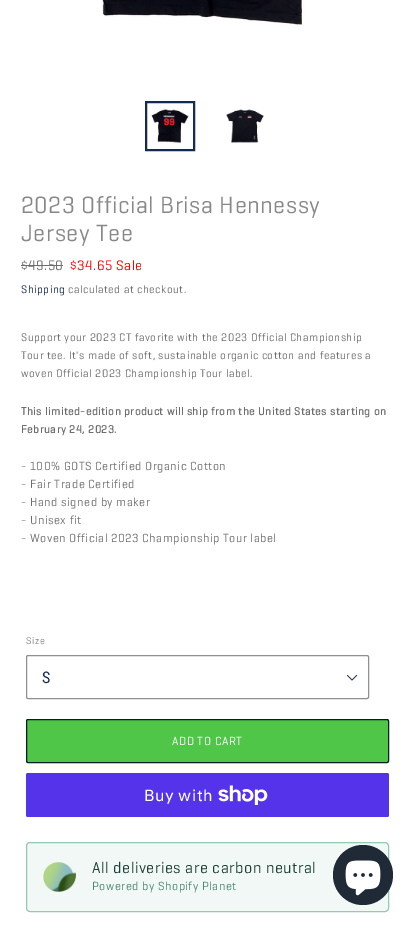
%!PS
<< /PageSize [415 926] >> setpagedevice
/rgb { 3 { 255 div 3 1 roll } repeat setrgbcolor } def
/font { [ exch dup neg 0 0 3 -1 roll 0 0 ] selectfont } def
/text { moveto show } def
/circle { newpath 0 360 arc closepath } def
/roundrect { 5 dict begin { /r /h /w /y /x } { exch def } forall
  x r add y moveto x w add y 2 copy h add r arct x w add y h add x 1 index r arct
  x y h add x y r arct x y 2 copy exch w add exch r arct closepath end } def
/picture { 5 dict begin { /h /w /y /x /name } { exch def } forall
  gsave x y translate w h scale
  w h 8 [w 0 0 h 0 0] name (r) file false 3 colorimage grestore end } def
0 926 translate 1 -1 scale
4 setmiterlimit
255 255 255 rgb
0 0 415 926 rectfill
(img_01.rgb) 102 0 202 28 picture
22 41 80 rgb
2 setlinewidth
146 102 48 48 rectstroke
(img_02.rgb) 151 109 38 35 picture
(img_03.rgb) 226 109 38 34 picture
109 109 109 rgb
21 265 42 1 rectfill
(img_04.rgb) 346 674 12 7 picture
144 144 144 rgb
1 setlinewidth
26.5 655.5 342 43 1.5 roundrect stroke
79 198 72 rgb
26.5 719.5 362 43 1.5 roundrect gsave fill grestore
5 28 44 rgb
stroke
84 51 235 rgb
26 773 363 44 2 roundrect fill
(img_05.rgb) 218 785 50 20 picture
241 248 245 rgb
26.5 842.5 362 69 3.5 roundrect gsave fill grestore
149 201 180 rgb
stroke
(img_06.rgb) 43 862 33 30 picture
32 42 54 rgb
363 875 30 circle fill
(img_07.rgb) 345 860 36 36 picture
/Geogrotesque-Regular 24 font
136 136 136 rgb
21 213 moveto 0.5 0 (2023 Official Brisa Hennessy) ashow
21 241 moveto 0.5 0 (Jersey Tee) ashow
/Geogrotesque-Regular 14 font
109 109 109 rgb
21 270 moveto 0.5 0 ($49.50) ashow
255 0 0 rgb
70 270 moveto 0.5 0 ($34.65 Sale) ashow
/Geogrotesque-Regular 11.15 font
22 41 80 rgb
21 293 moveto 0.5 0 (Shipping) ashow
109 109 109 rgb
68 293 moveto 0.5 0 (calculated at checkout.) ashow
21 341 moveto 0.5 0 (Support your 2023 CT favorite with the 2023 Official Championship) ashow
21 359 moveto 0.5 0 (Tour tee. It's made of soft, sustainable organic cotton and features a) ashow
21 377 moveto 0.5 0 (woven Official 2023 Championship Tour label.) ashow
/Geogrotesque-Bold 11.15 font
21 415 moveto 0.5 0 (This limited-edition product will ship from the United States starting on) ashow
21 433 moveto 0.5 0 (February 24, 2023.) ashow
/Geogrotesque-Regular 12 font
21 470 moveto 0.5 0 (- 100% GOTS Certified Organic Cotton) ashow
21 488 moveto 0.5 0 (- Fair Trade Certified) ashow
21 506 moveto 0.5 0 (- Hand signed by maker) ashow
21 524 moveto 0.5 0 (- Unisex fit) ashow
21 542 moveto 0.5 0 (- Woven Official 2023 Championship Tour label) ashow
/Geogrotesque-Regular 10 font
136 136 136 rgb
26 644 moveto 0.5 0 (Size) ashow
/RobotoCondensed-Regular 16 font
22 41 80 rgb
(S) 42 683 text
/Geogrotesque-Regular 12 font
255 255 255 rgb
172 745 moveto 0.5 0 (ADD TO CART) ashow
/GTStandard-Regular 16 font
144 801 moveto 0.5 0 (Buy with) ashow
/Geogrotesque-Regular 16 font
29 65 54 rgb
92 873 moveto 0.5 0 (All deliveries are carbon neutral) ashow
/Geogrotesque-Regular 12 font
74 134 116 rgb
92 890 moveto 0.5 0 (Powered by Shopify Planet) ashow
showpage
